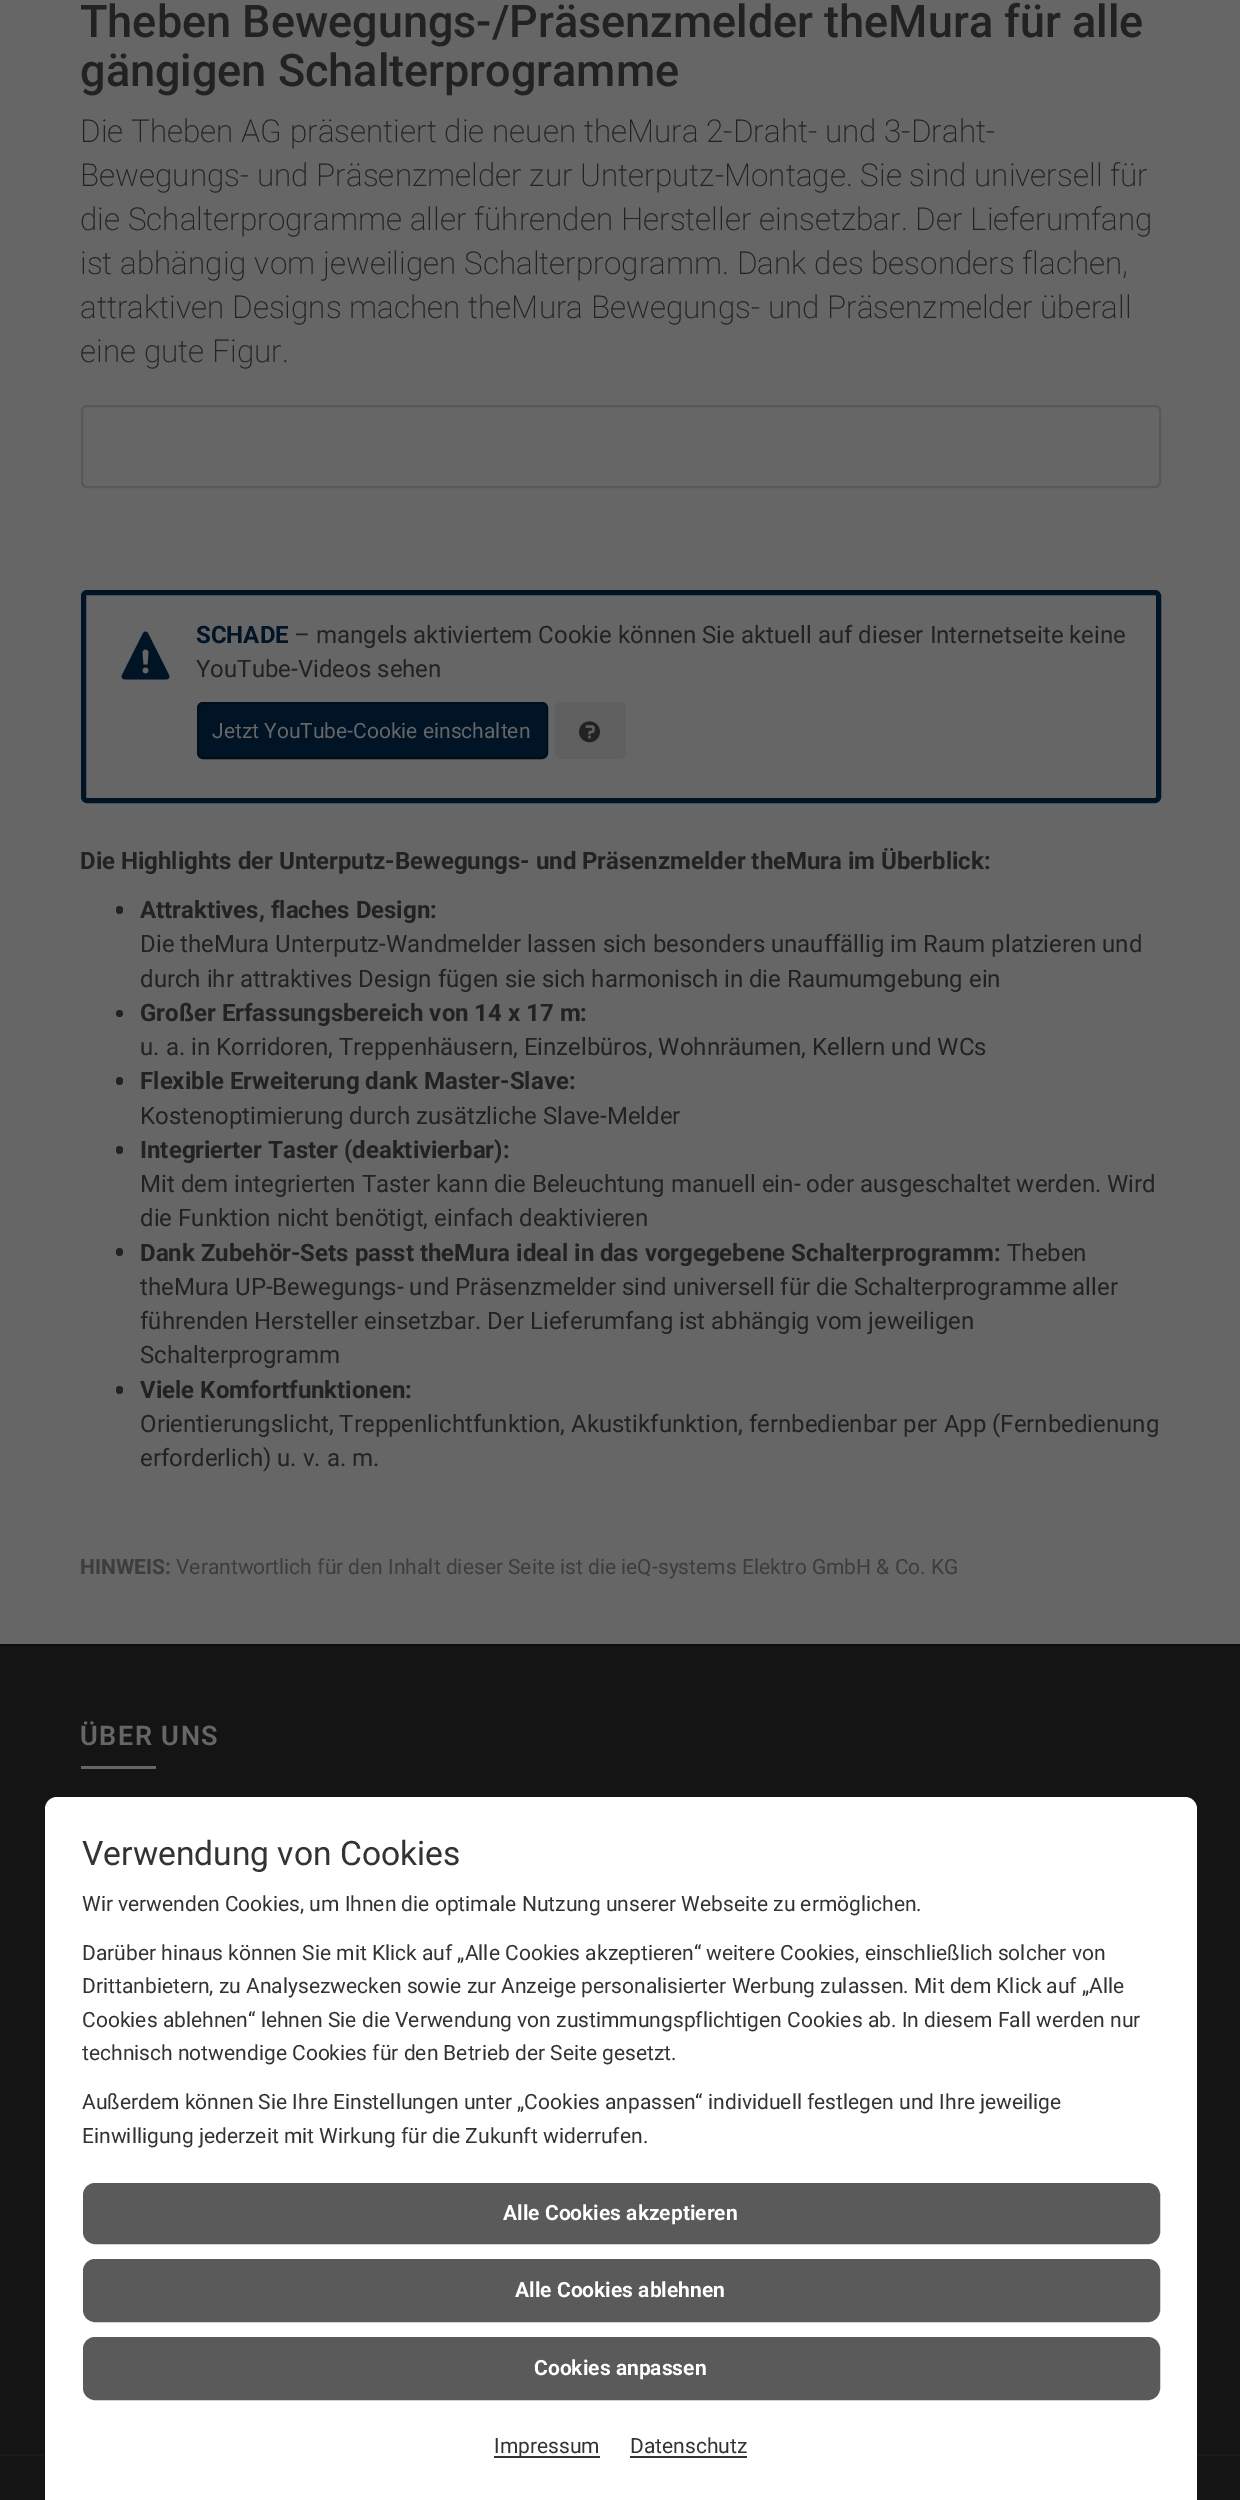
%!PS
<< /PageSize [1240 2500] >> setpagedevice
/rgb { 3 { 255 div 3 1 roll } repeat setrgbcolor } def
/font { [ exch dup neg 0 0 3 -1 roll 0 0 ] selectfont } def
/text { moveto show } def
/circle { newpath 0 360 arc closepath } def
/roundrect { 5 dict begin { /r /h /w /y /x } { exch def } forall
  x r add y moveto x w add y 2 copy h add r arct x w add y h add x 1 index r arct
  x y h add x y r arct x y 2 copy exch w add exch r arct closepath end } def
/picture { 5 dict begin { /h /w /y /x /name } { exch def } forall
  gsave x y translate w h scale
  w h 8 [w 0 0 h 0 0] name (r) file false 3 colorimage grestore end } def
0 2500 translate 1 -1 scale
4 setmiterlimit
102 102 102 rgb
0 0 1240 2500 rectfill
88 88 88 rgb
2 setlinewidth
82 406 1078 81 5 roundrect stroke
0 20 38 rgb
5 setlinewidth
83.5 592.5 1075 208 3.5 roundrect stroke
(img_01.rgb) 121 631 49 49 picture
198 703 349 55 5 roundrect gsave fill grestore
0 14 28 rgb
2 setlinewidth
stroke
96 96 96 rgb
555 702 71 57 6 roundrect fill
(img_02.rgb) 579 721 21 22 picture
34 34 34 rgb
116 906 7 8 3.5 roundrect fill
119.5 1013.5 3.5 circle fill
116 1077 7 8 3.5 roundrect fill
116 1146 7 8 3.5 roundrect fill
116 1248 7 8 3.5 roundrect fill
116 1386 7 8 3.5 roundrect fill
20 20 20 rgb
0 1646 1240 854 rectfill
15 15 15 rgb
0 1644 1240 2 rectfill
102 102 102 rgb
81 1766 75 3 rectfill
26 26 26 rgb
0 2454 1240 2 rectfill
255 255 255 rgb
57 1797 moveto 1128 0 rlineto 6.5 0 12 5.5 12 12 rcurveto 0 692 rlineto -1152 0 rlineto 0 -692 rlineto 0 -6.5 5.5 -12 12 -12 rcurveto closepath fill
90 90 90 rgb
84 2184 1075 59 11 roundrect gsave fill grestore
stroke
84 2260 1075 61 11 roundrect gsave fill grestore
stroke
84 2338 1075 61 11 roundrect gsave fill grestore
stroke
51 51 51 rgb
494 2456 106 2 rectfill
630 2456 117 2 rectfill
/Roboto-Medium 45 font
34 34 34 rgb
(Theben Bewegungs-/Präsenzmelder theMura für alle) 80 37 text
(gängigen Schalterprogramme) 80 86 text
/Roboto-ExtraLight 31.5 font
(Die Theben AG präsentiert die neuen theMura 2-Draht- und 3-Draht-) 80 142 text
(Bewegungs- und Präsenzmelder zur Unterputz-Montage. Sie sind universell für) 80 186 text
(die Schalterprogramme aller führenden Hersteller einsetzbar. Der Lieferumfang) 80 230 text
(ist abhängig vom jeweiligen Schalterprogramm. Dank des besonders flachen,) 80 274 text
(attraktiven Designs machen theMura Bewegungs- und Präsenzmelder überall) 80 318 text
(eine gute Figur.) 80 362 text
/Roboto-Bold 24 font
0 20 38 rgb
(SCHADE) 196 643 text
/Roboto-Regular 24 font
34 34 34 rgb
(– mangels aktiviertem Cookie können Sie aktuell auf dieser Internetseite keine) 294 643 text
(YouTube-Videos sehen) 196 677 text
/Roboto-Regular 21 font
102 102 102 rgb
(Jetzt YouTube-Cookie einschalten) 212 738 text
/Roboto-Bold 24 font
34 34 34 rgb
(Die Highlights der Unterputz-Bewegungs- und Präsenzmelder theMura im Überblick:) 80 869 text
(Attraktives, flaches Design:) 140 918 text
/Roboto-Regular 24 font
(Die theMura Unterputz-Wandmelder lassen sich besonders unauffällig im Raum platzieren und) 140 952 text
(durch ihr attraktives Design fügen sie sich harmonisch in die Raumumgebung ein) 140 987 text
/Roboto-Bold 24 font
(Großer Erfassungsbereich von 14 x 17 m:) 140 1021 text
/Roboto-Regular 24 font
(u. a. in Korridoren, Treppenhäusern, Einzelbüros, Wohnräumen, Kellern und WCs) 140 1055 text
/Roboto-Bold 24 font
(Flexible Erweiterung dank Master-Slave:) 140 1089 text
/Roboto-Regular 24 font
(Kostenoptimierung durch zusätzliche Slave-Melder) 140 1124 text
/Roboto-Bold 24 font
(Integrierter Taster \(deaktivierbar\):) 140 1158 text
/Roboto-Regular 24 font
(Mit dem integrierten Taster kann die Beleuchtung manuell ein- oder ausgeschaltet werden. Wird) 140 1192 text
(die Funktion nicht benötigt, einfach deaktivieren) 140 1226 text
/Roboto-Bold 24 font
(Dank Zubehör-Sets passt theMura ideal in das vorgegebene Schalterprogramm:) 140 1261 text
/Roboto-Regular 24 font
(Theben) 1007 1261 text
(theMura UP-Bewegungs- und Präsenzmelder sind universell für die Schalterprogramme aller) 140 1295 text
(führenden Hersteller einsetzbar. Der Lieferumfang ist abhängig vom jeweiligen) 140 1329 text
(Schalterprogramm) 140 1363 text
/Roboto-Bold 24 font
(Viele Komfortfunktionen:) 140 1398 text
/Roboto-Regular 24 font
(Orientierungslicht, Treppenlichtfunktion, Akustikfunktion, fernbedienbar per App \(Fernbedienung) 140 1432 text
(erforderlich\) u. v. a. m.) 140 1466 text
/Roboto-Bold 21 font
61 61 61 rgb
(HINWEIS:) 80 1574 text
/Roboto-Regular 21 font
(Verantwortlich für den Inhalt dieser Seite ist die ieQ-systems Elektro GmbH & Co. KG) 176 1574 text
/Roboto-SemiBold 27 font
102 102 102 rgb
80 1745 moveto 1.5 0 (ÜBER UNS) ashow
/Roboto-Regular 33.6 font
51 51 51 rgb
(Verwendung von Cookies) 82 1865 text
/Roboto-Regular 21 font
(Wir verwenden Cookies, um Ihnen die optimale Nutzung unserer Webseite zu ermöglichen.) 82 1911 text
(Darüber hinaus können Sie mit Klick auf „Alle Cookies akzeptieren“ weitere Cookies, einschließlich solcher von) 82 1960 text
(Drittanbietern, zu Analysezwecken sowie zur Anzeige personalisierter Werbung zulassen. Mit dem Klick auf „Alle) 82 1993 text
(Cookies ablehnen“ lehnen Sie die Verwendung von zustimmungspflichtigen Cookies ab. In diesem Fall werden nur) 82 2027 text
(technisch notwendige Cookies für den Betrieb der Seite gesetzt.) 82 2060 text
(Außerdem können Sie Ihre Einstellungen unter „Cookies anpassen“ individuell festlegen und Ihre jeweilige) 82 2109 text
(Einwilligung jederzeit mit Wirkung für die Zukunft widerrufen.) 82 2143 text
/Roboto-Bold 21 font
255 255 255 rgb
(Alle Cookies akzeptieren) 503 2220 text
(Alle Cookies ablehnen) 515 2297 text
(Cookies anpassen) 534 2375 text
/Roboto-Regular 21 font
51 51 51 rgb
(Impressum) 494 2453 text
(Datenschutz) 630 2453 text
showpage
